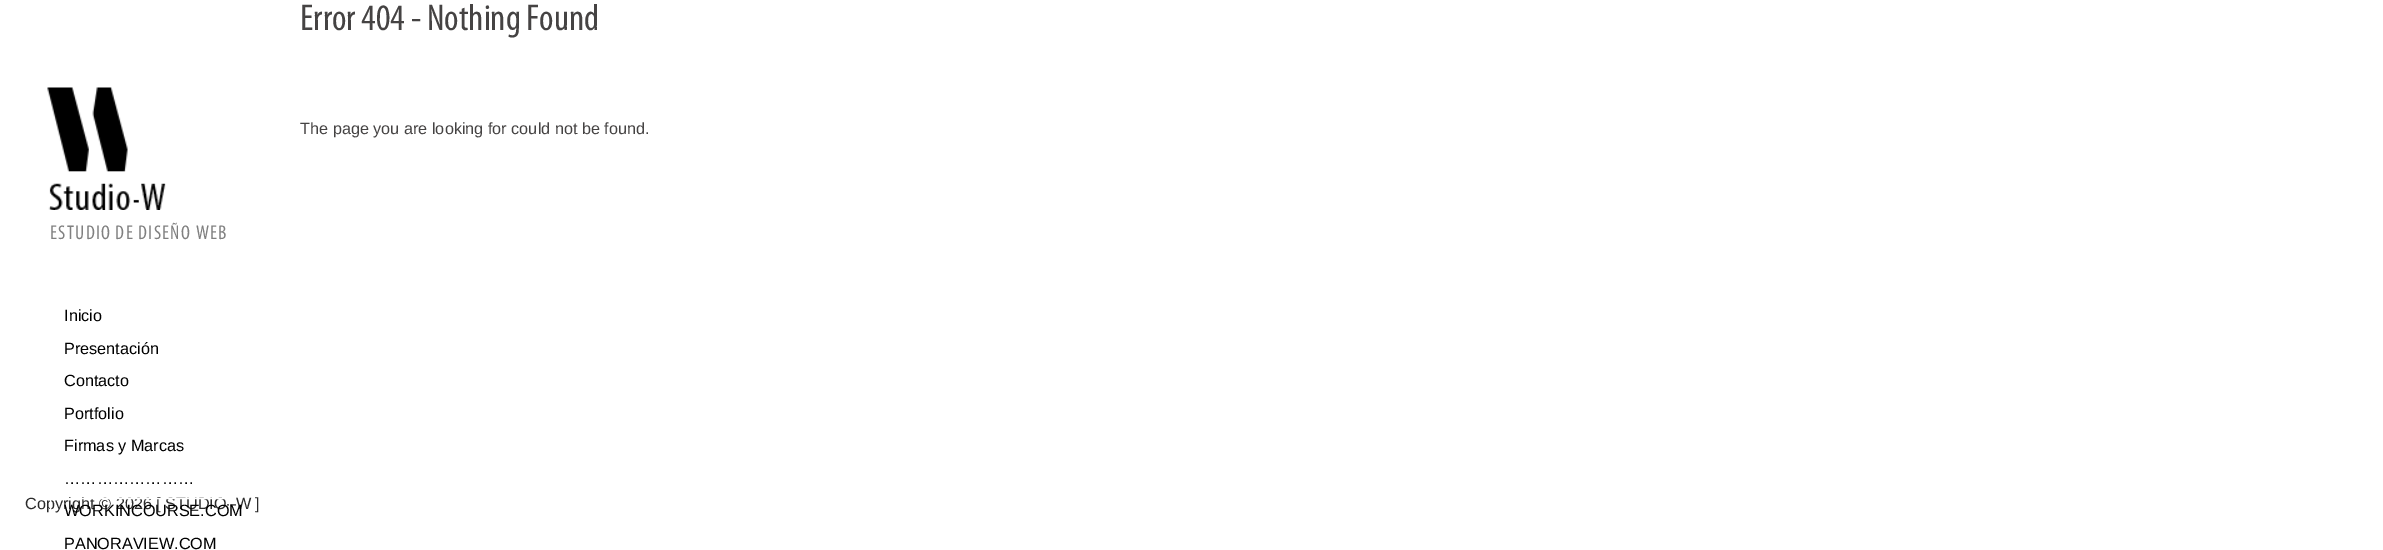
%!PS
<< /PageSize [2383 550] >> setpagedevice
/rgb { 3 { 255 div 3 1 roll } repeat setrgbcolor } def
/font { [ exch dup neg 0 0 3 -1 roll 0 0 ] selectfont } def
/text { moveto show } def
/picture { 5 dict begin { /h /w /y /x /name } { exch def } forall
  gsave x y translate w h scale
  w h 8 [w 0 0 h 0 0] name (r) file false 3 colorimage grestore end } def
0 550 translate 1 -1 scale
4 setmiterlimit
255 255 255 rgb
0 0 2383 550 rectfill
(img_01.rgb) 47 87 119 123 picture
/Myriad-Regular 37.5 font
69 67 67 rgb
(Error 404 - Nothing Found) 300 30 text
/LiberationSans-Regular 16.25 font
(The page you are looking for could not be found.) 300 134 text
/Myriad-Bold 20 font
128 128 128 rgb
50 239 moveto 1.25 0 (ESTUDIO DE DISEÑO WEB) ashow
/LiberationSans-Regular 16.25 font
0 0 0 rgb
(Inicio) 64 321 text
(Presentación) 64 354 text
(Contacto) 64 386 text
(Portfolio) 64 419 text
(Firmas y Marcas) 64 451 text
(……………………) 64 484 text
(PANORAVIEW.COM) 64 549 text
43 43 43 rgb
(Copyright © 2026 [ STUDIO–W ]) 25 509 text
255 255 255 rgb
50.5 498.5 179 25 rectstroke
0 0 0 rgb
(WORKINCOURSE.COM) 64 516 text
showpage
